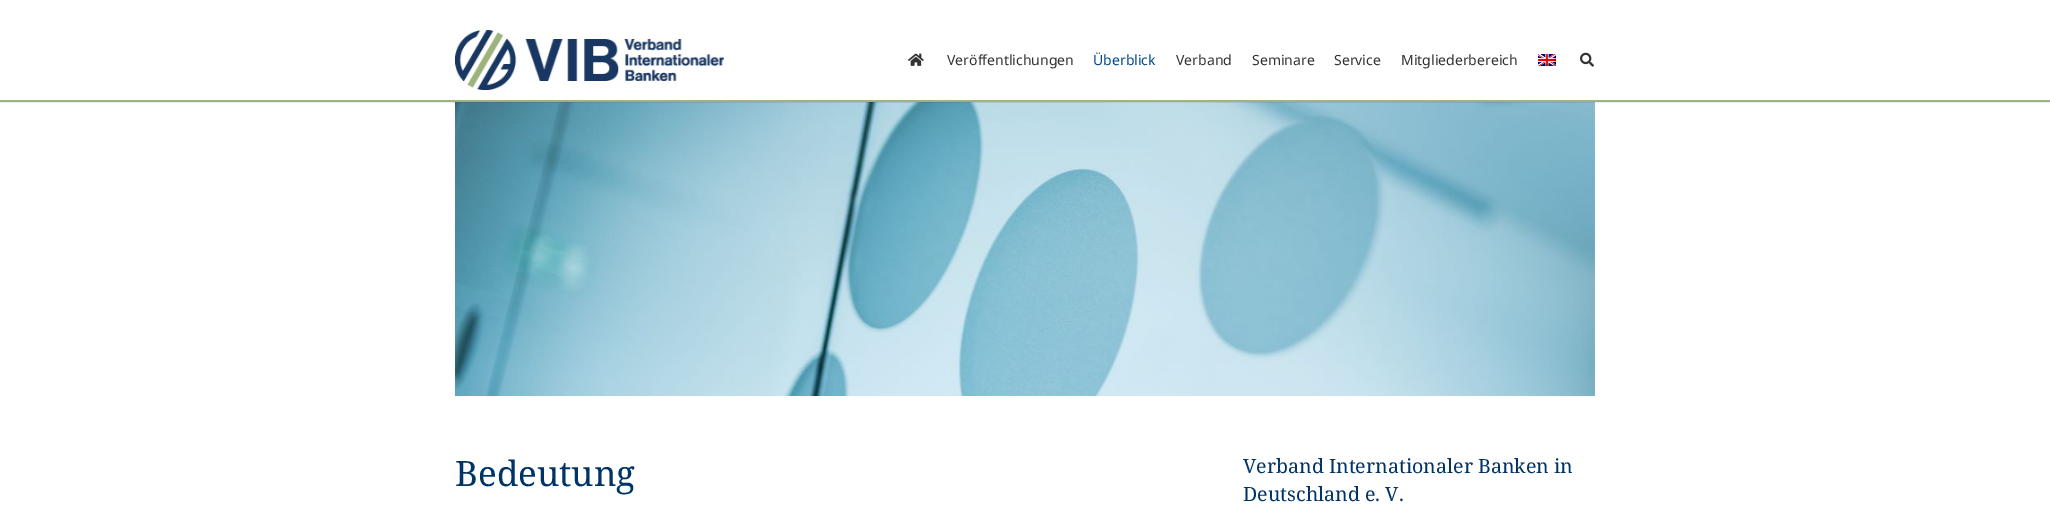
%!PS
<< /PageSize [2050 510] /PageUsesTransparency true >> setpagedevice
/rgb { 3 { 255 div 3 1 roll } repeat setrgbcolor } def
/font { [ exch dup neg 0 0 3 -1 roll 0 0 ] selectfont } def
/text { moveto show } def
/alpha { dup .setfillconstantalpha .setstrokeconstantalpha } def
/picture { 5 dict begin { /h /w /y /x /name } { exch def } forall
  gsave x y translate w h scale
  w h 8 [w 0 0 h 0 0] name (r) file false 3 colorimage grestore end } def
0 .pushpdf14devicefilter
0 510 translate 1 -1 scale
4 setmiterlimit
255 255 255 rgb
0 0 2050 510 rectfill
(img_01.rgb) 455 30 269 60 picture
(img_02.rgb) 908 53 16 13 picture
(img_03.rgb) 1538 54 18 12 picture
(img_04.rgb) 1580 52 14 15 picture
(img_05.rgb) 455 102 1140 294 picture
0.08 alpha
0 0 0 rgb
0 102 2050 1 rectfill
1 alpha
157 180 126 rgb
0 100 2050 2 rectfill
/NotoSans-Regular 14 font
51 51 51 rgb
(Veröffentlichungen) 947 65 text
0 71 136 rgb
(Überblick) 1093 65 text
51 51 51 rgb
(Verband) 1176 65 text
(Seminare) 1252 65 text
(Service) 1334 65 text
(Mitgliederbereich) 1401 65 text
/NotoSerif-Regular 35 font
0 51 102 rgb
(Bedeutung) 455 486 text
/NotoSerif-Regular 19.6 font
(Verband Internationaler Banken in) 1243 473 text
(Deutschland e. V.) 1243 501 text
.poppdf14devicefilter showpage
